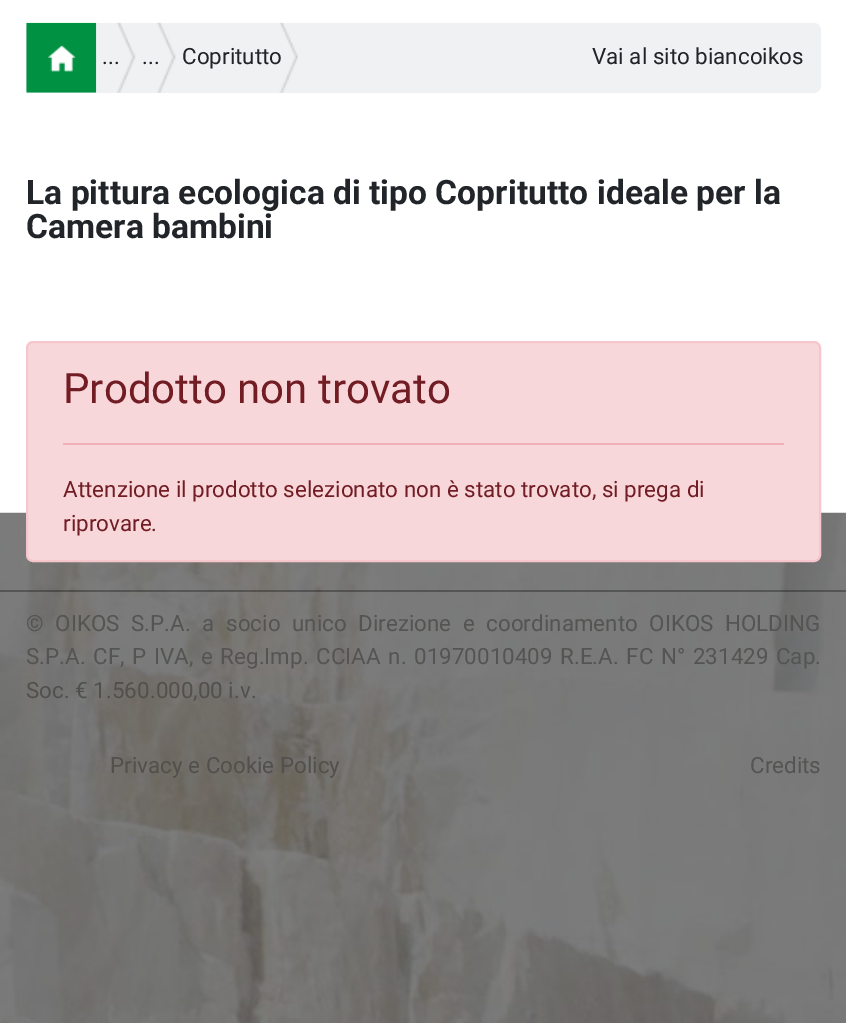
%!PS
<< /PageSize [846 1023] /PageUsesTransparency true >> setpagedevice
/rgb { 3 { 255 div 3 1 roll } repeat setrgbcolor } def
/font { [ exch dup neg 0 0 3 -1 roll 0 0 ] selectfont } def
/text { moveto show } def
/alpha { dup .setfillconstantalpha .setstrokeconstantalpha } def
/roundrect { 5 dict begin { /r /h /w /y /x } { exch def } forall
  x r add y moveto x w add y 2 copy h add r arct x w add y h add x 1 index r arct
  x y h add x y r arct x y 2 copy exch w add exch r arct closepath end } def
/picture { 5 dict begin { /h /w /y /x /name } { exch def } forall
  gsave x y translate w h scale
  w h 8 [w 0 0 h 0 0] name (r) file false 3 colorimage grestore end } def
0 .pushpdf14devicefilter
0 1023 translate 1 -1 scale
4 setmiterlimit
255 255 255 rgb
0 0 846 1023 rectfill
239 241 243 rgb
26 23 795 70 7 roundrect fill
(img_01.rgb) 26 22 71 71 picture
(img_02.rgb) 117 22 19 71 picture
(img_03.rgb) 157 22 19 71 picture
(img_04.rgb) 279 22 19 71 picture
(img_05.rgb) 0 512 846 511 picture
248 215 218 rgb
27 342 793 219 6 roundrect gsave fill grestore
245 198 203 rgb
2 setlinewidth
stroke
241 176 183 rgb
63 443 721 2 rectfill
0.3 alpha
0 0 0 rgb
0 590 846 2 rectfill
/Roboto-Regular 22.4 font
1 alpha
33 37 41 rgb
(...) 102 64 text
(...) 142 64 text
(Copritutto) 182 64 text
(Vai al sito biancoikos) 592 64 text
/Roboto-Bold 33.6 font
(La pittura ecologica di tipo Copritutto ideale per la) 26 204 text
(Camera bambini) 26 238 text
/Roboto-Regular 42 font
114 28 36 rgb
(Prodotto non trovato) 63 403 text
/Roboto-Regular 22.4 font
(Attenzione il prodotto selezionato non è stato trovato, si prega di) 63 497 text
(riprovare.) 63 531 text
84 84 83 rgb
26 631 moveto 6 0 32 (© OIKOS S.P.A. a socio unico Direzione e coordinamento OIKOS HOLDING) widthshow
26 664 moveto 2 0 32 (S.P.A. CF, P IVA, e Reg.Imp. CCIAA n. 01970010409 R.E.A. FC N° 231429 Cap.) widthshow
81 80 77 rgb
(Soc. € 1.560.000,00 i.v.) 26 698 text
(Privacy e Cookie Policy) 110 773 text
84 84 83 rgb
(Credits) 750 773 text
.poppdf14devicefilter showpage
